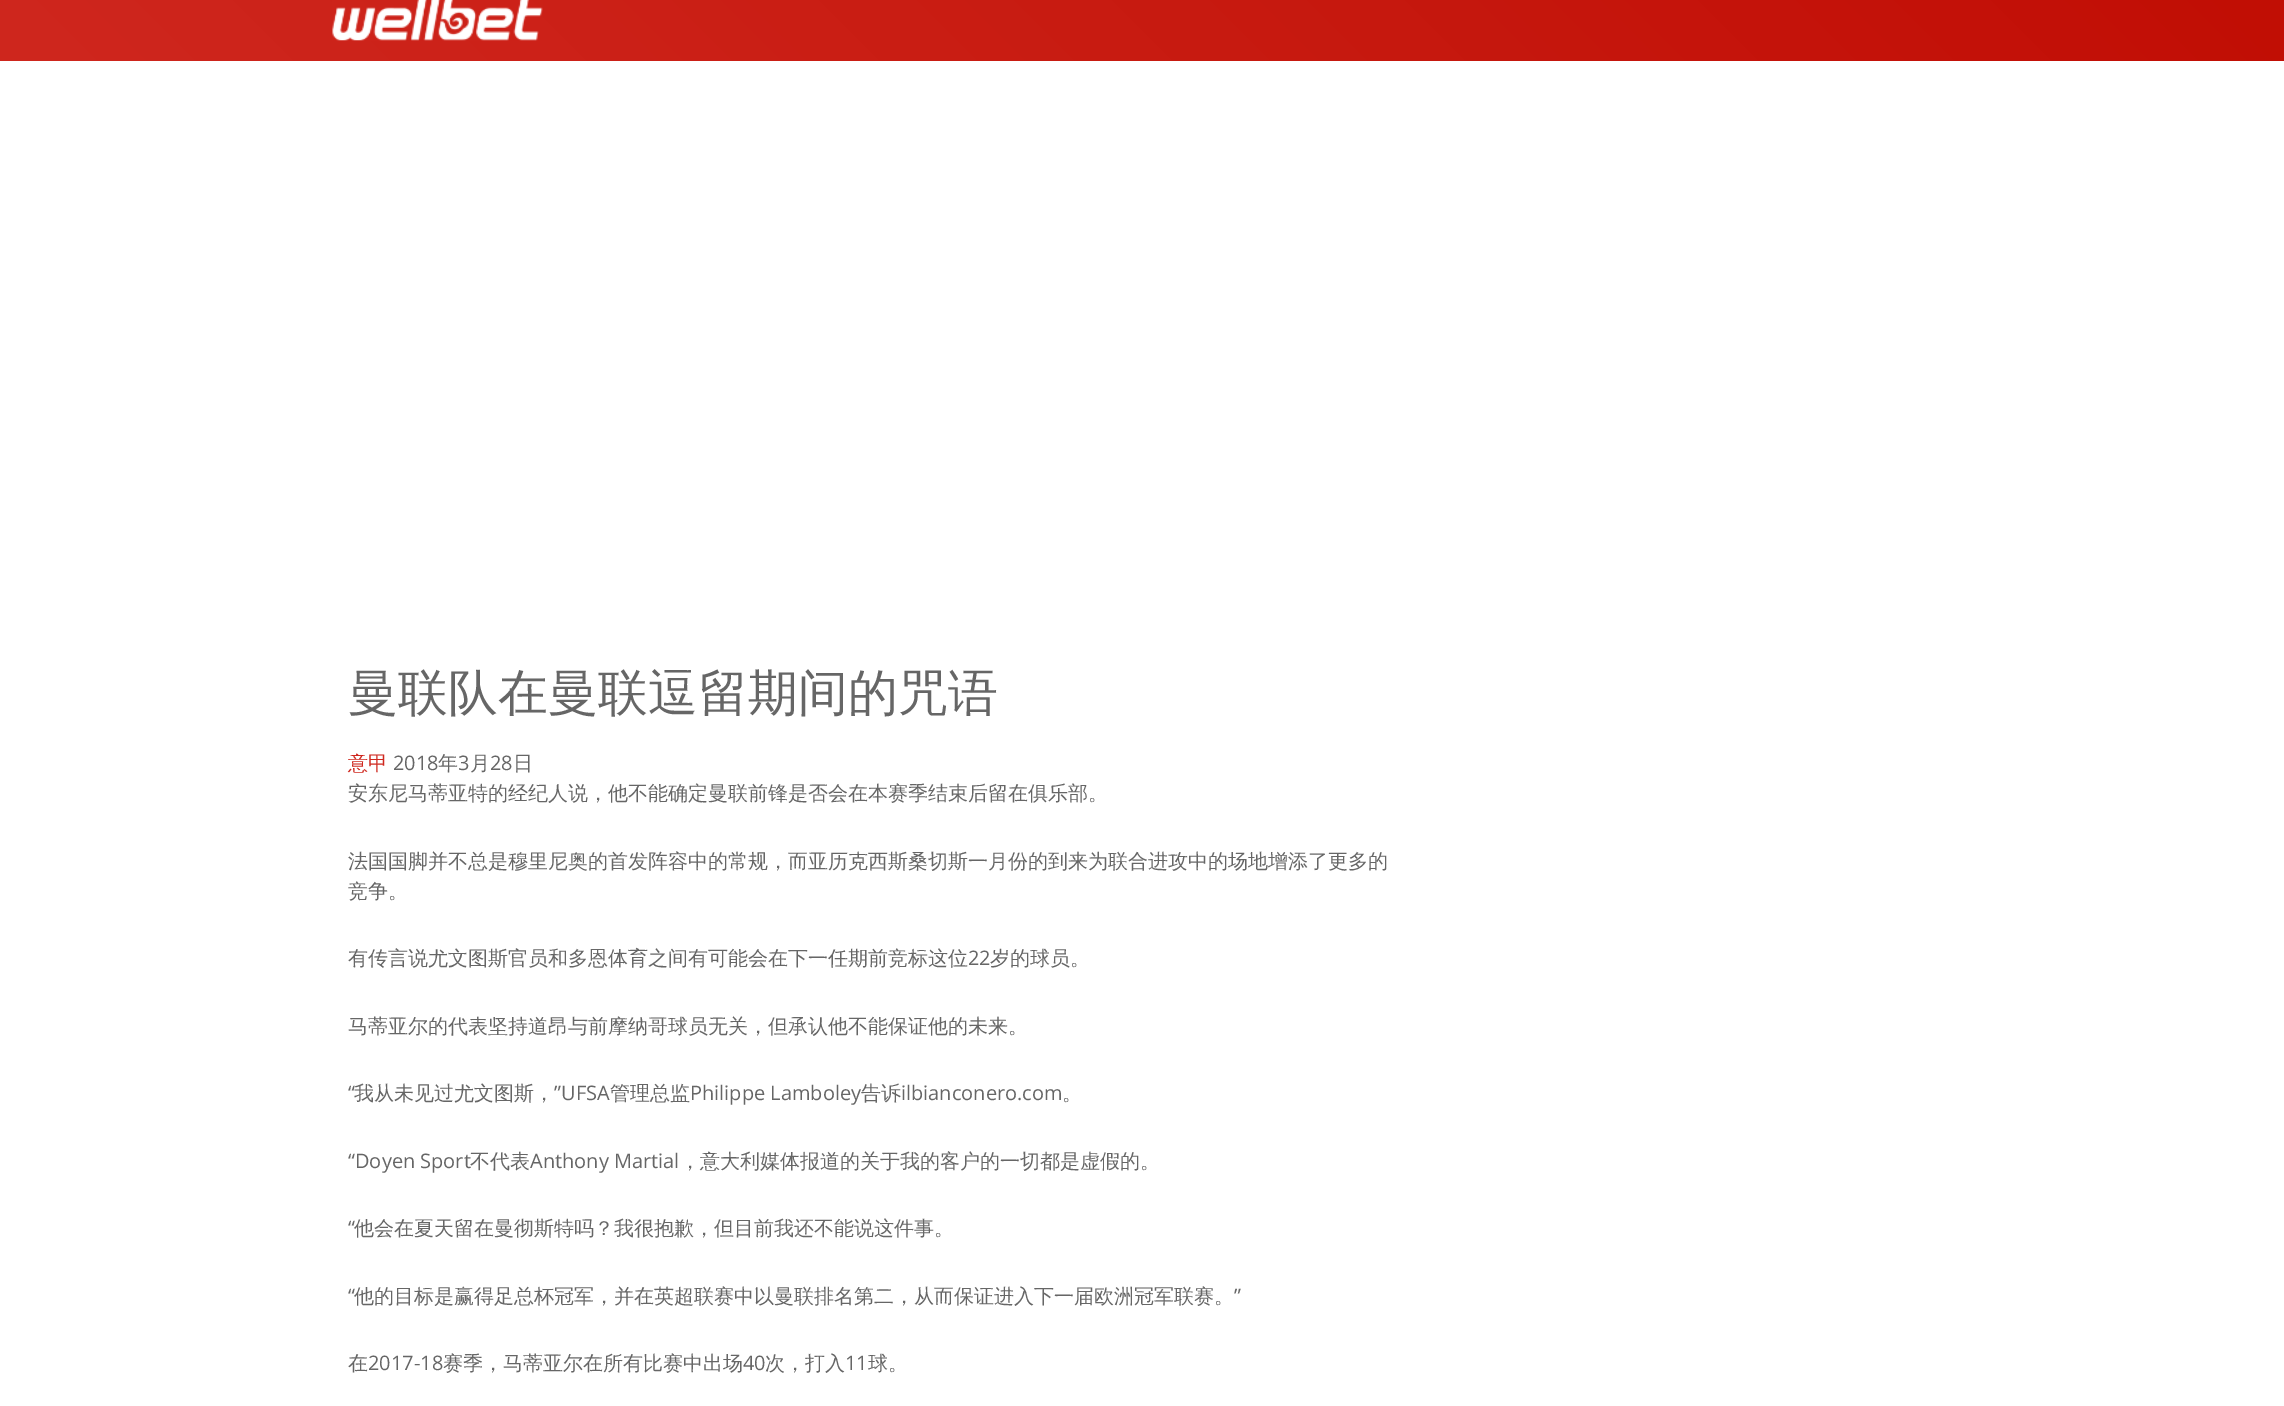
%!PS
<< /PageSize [2284 1406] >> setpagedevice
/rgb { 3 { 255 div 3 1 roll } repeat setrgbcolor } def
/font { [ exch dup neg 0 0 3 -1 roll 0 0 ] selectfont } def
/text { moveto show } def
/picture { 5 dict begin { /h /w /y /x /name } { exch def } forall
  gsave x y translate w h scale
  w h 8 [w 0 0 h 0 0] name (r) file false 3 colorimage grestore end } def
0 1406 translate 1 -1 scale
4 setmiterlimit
255 255 255 rgb
0 0 2284 1406 rectfill
gsave 0 0 moveto 2284 0 rlineto 0 61 rlineto -2284 0 rlineto closepath clip newpath
<< /ShadingType 2 /ColorSpace /DeviceRGB /Coords [549 611 1736 -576] /Extend [true true] /Function << /FunctionType 2 /Domain [0 1] /C0 [0.812 0.153 0.118] /C1 [0.757 0.055 0.016] /N 1 >> >> shfill grestore
(img_01.rgb) 332 0 211 41 picture
/WenQuanYiZenHei-Medium 50 font
102 102 102 rgb
(曼联队在曼联逗留期间的咒语) 348 710 text
/WenQuanYiZenHei-Medium 20 font
207 39 30 rgb
(意甲) 348 770 text
/OpenSans-Regular 20 font
102 102 102 rgb
(2018) 393 770 text
/WenQuanYiZenHei-Medium 20 font
(年) 438 770 text
/OpenSans-Regular 20 font
(3) 458 770 text
/WenQuanYiZenHei-Medium 20 font
(月) 470 770 text
/OpenSans-Regular 20 font
(28) 490 770 text
/WenQuanYiZenHei-Medium 20 font
(日) 513 770 text
(安东尼马蒂亚特的经纪人说，他不能确定曼联前锋是否会在本赛季结束后留在俱乐部。) 348 800 text
(法国国脚并不总是穆里尼奥的首发阵容中的常规，而亚历克西斯桑切斯一月份的到来为联合进攻中的场地增添了更多的) 348 868 text
(竞争。) 348 898 text
(有传言说尤文图斯官员和多恩体育之间有可能会在下一任期前竞标这位) 348 965 text
/OpenSans-Regular 20 font
(22) 968 965 text
/WenQuanYiZenHei-Medium 20 font
(岁的球员。) 990 965 text
(马蒂亚尔的代表坚持道昂与前摩纳哥球员无关，但承认他不能保证他的未来。) 348 1033 text
/OpenSans-Regular 20 font
(“) 348 1100 text
/WenQuanYiZenHei-Medium 20 font
(我从未见过尤文图斯，) 354 1100 text
/OpenSans-Regular 20 font
(”UFSA) 554 1100 text
/WenQuanYiZenHei-Medium 20 font
(管理总监) 610 1100 text
/OpenSans-Regular 20 font
(Philippe Lamboley) 690 1100 text
/WenQuanYiZenHei-Medium 20 font
(告诉) 861 1100 text
/OpenSans-Regular 20 font
(ilbianconero.com) 901 1100 text
/WenQuanYiZenHei-Medium 20 font
(。) 1062 1100 text
/OpenSans-Regular 20 font
(“Doyen Sport) 348 1168 text
/WenQuanYiZenHei-Medium 20 font
(不代表) 470 1168 text
/OpenSans-Regular 20 font
(Anthony Martial) 530 1168 text
/WenQuanYiZenHei-Medium 20 font
(，意大利媒体报道的关于我的客户的一切都是虚假的。) 680 1168 text
/OpenSans-Regular 20 font
(“) 348 1235 text
/WenQuanYiZenHei-Medium 20 font
(他会在夏天留在曼彻斯特吗？我很抱歉，但目前我还不能说这件事。) 354 1235 text
/OpenSans-Regular 20 font
(“) 348 1303 text
/WenQuanYiZenHei-Medium 20 font
(他的目标是赢得足总杯冠军，并在英超联赛中以曼联排名第二，从而保证进入下一届欧洲冠军联赛。) 354 1303 text
/OpenSans-Regular 20 font
(”) 1234 1303 text
/WenQuanYiZenHei-Medium 20 font
(在) 348 1370 text
/OpenSans-Regular 20 font
(2017-18) 368 1370 text
/WenQuanYiZenHei-Medium 20 font
(赛季，马蒂亚尔在所有比赛中出场) 443 1370 text
/OpenSans-Regular 20 font
(40) 743 1370 text
/WenQuanYiZenHei-Medium 20 font
(次，打入) 765 1370 text
/OpenSans-Regular 20 font
(11) 845 1370 text
/WenQuanYiZenHei-Medium 20 font
(球。) 868 1370 text
showpage
